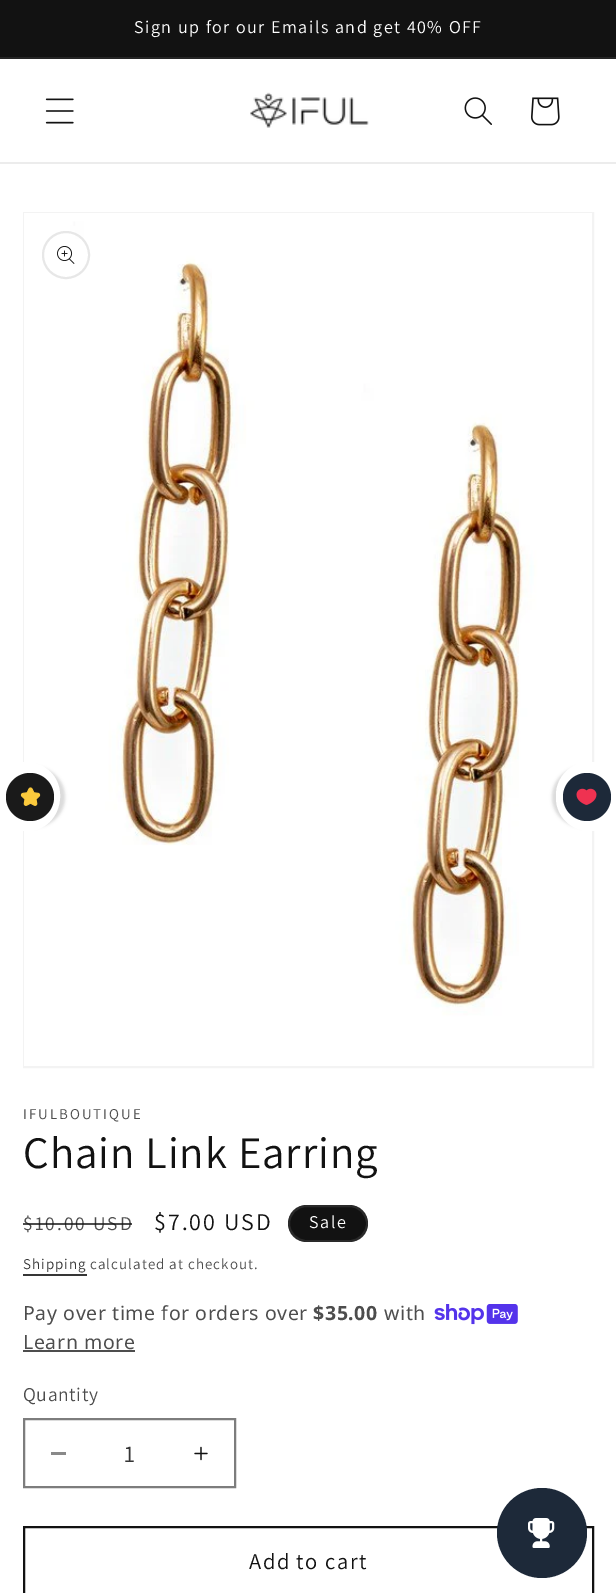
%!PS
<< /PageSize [616 1593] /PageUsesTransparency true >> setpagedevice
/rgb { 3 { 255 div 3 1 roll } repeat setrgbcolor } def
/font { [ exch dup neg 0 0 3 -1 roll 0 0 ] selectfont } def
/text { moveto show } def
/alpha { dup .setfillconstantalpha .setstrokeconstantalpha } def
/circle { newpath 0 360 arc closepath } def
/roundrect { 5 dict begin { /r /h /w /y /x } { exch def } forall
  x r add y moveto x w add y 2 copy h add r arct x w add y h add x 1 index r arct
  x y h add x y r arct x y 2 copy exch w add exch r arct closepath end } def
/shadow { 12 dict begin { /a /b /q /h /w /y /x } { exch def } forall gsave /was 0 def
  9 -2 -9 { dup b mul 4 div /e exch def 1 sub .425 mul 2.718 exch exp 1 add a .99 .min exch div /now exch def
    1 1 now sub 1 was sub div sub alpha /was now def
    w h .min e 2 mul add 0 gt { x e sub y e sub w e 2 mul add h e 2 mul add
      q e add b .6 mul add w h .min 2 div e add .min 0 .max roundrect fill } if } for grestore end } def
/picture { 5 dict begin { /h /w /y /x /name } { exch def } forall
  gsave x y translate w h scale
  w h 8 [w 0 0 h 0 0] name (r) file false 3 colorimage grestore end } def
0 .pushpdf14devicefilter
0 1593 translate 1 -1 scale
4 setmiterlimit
255 255 255 rgb
0 0 616 1593 rectfill
18 18 18 rgb
0 0 616 57 rectfill
37 37 37 rgb
0 57 616 2 rectfill
236 236 236 rgb
0 162 616 2 rectfill
(img_01.rgb) 45 98 29 26 picture
(img_02.rgb) 250 92 119 36 picture
(img_03.rgb) 464 97 28 28 picture
(img_04.rgb) 531 97 29 29 picture
243 243 243 rgb
2 setlinewidth
24 213 569 854 rectstroke
(img_08.rgb) 24 213 568 853 picture
218 218 218 rgb
-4 767 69 60 33 1.5 1 shadow
255 255 255 rgb
0 831 moveto 0 -69 rlineto 11 0 30 -1 40 3 rcurveto 33 14 23 66 -13 66 rcurveto closepath fill
26 26 26 rgb
30 797 24 circle fill
(img_05.rgb) 20 787 21 19 picture
218 218 218 rgb
552 767 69 60 33 1.5 1 shadow
255 255 255 rgb
556 798 moveto 0 -3 rlineto 0 -18 15 -33 33 -33 rcurveto 27 0 rlineto 0 69 rlineto -27 0 rlineto -18 0 -33 -15 -33 -33 rcurveto closepath fill
29 41 57 rgb
587 797 24 circle fill
(img_06.rgb) 576 788 21 17 picture
18 18 18 rgb
24 1527 569 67 rectstroke
29 41 57 rgb
542 1533 45 circle fill
(img_07.rgb) 528 1518 27 30 picture
231 231 231 rgb
66 255 23 circle stroke
(img_09.rgb) 57 246 18 18 picture
18 18 18 rgb
288 1205 80 37 18.5 roundrect fill
0.1 alpha
255 255 255 rgb
289 1206 78 35 17.5 roundrect stroke
1 alpha
54 54 54 rgb
23 1274 64 2 rectfill
(img_10.rgb) 434 1304 84 21 picture
77 77 77 rgb
23 1350 112 2 rectfill
137 137 137 rgb
51 1452 15 3 rectfill
(img_11.rgb) 194 1446 14 15 picture
125 125 125 rgb
24 1419 211 68 rectstroke
/Assistant-Regular 18 font
255 255 255 rgb
134 33 moveto 1.5 0 (Sign up for our Emails and get 40% OFF) ashow
/Assistant-Regular 15 font
77 77 77 rgb
23 1119 moveto 2 0 (IFULBOUTIQUE) ashow
/Assistant-Regular 45 font
18 18 18 rgb
23 1168 moveto 0.9 0 (Chain Link Earring) ashow
/Assistant-Regular 19.5 font
77 77 77 rgb
23 1230 moveto 2 0 ($10.00 USD) ashow
0.75 alpha
18 18 18 rgb
23 1223 109 2 rectfill
/Assistant-Regular 24 font
1 alpha
154 1230 moveto 2 0 ($7.00 USD) ashow
/Assistant-Regular 18 font
255 255 255 rgb
309 1228 moveto 1.5 0 (Sale) ashow
/Assistant-Regular 15 font
54 54 54 rgb
23 1269 moveto 1.05 0 (Shipping) ashow
77 77 77 rgb
90 1269 moveto 1.05 0 (calculated at checkout.) ashow
/NotoSans-Regular 19.5 font
23 1320 moveto 0.6 0 (Pay over time for orders over) ashow
/NotoSans-Bold 19.5 font
313 1320 moveto 0.6 0 ($35.00) ashow
/NotoSans-Regular 19.5 font
384 1320 moveto 0.6 0 (with) ashow
23 1349 moveto 0.6 0 (Learn more) ashow
/Assistant-Regular 19.5 font
23 1401 moveto 0.6 0 (Quantity) ashow
/Assistant-Regular 24 font
54 54 54 rgb
(1) 124 1462 text
/Assistant-Regular 22.5 font
18 18 18 rgb
249 1569 moveto 1.5 0 (Add to cart) ashow
.poppdf14devicefilter showpage
